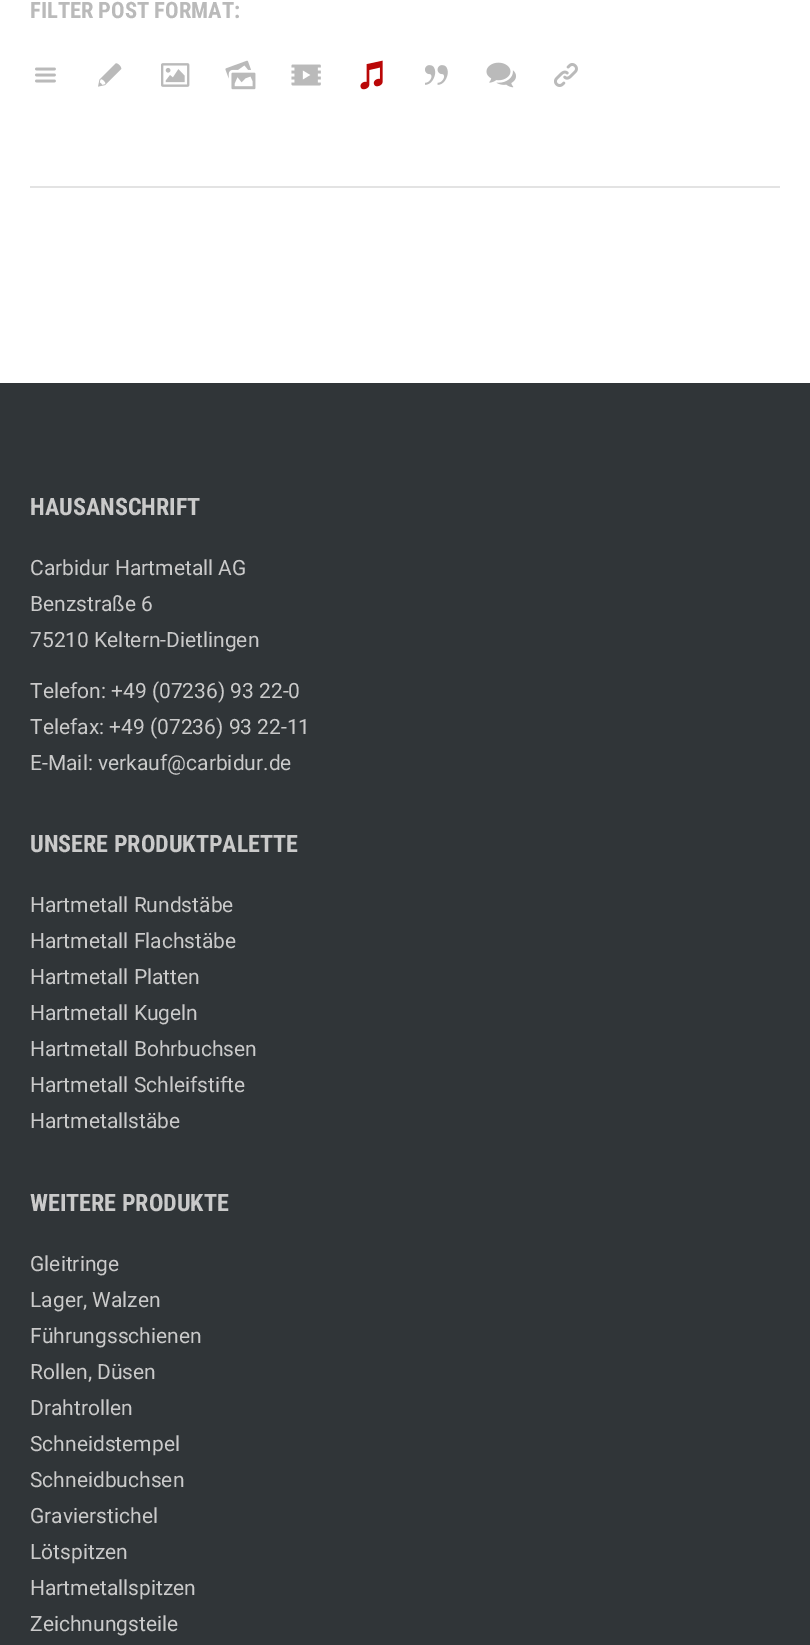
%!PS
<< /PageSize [810 1645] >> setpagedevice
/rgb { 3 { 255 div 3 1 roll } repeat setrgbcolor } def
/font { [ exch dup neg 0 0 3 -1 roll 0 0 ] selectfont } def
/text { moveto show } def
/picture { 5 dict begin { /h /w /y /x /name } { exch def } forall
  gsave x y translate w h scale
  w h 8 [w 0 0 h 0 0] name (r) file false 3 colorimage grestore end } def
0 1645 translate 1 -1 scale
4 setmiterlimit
255 255 255 rgb
0 0 810 1645 rectfill
(img_01.rgb) 35 67 21 16 picture
(img_02.rgb) 98 63 24 24 picture
(img_03.rgb) 161 63 29 24 picture
(img_04.rgb) 225 60 31 30 picture
(img_05.rgb) 291 64 30 22 picture
(img_06.rgb) 360 60 23 30 picture
(img_07.rgb) 425 65 23 20 picture
(img_08.rgb) 486 62 30 26 picture
(img_09.rgb) 554 63 24 24 picture
227 227 227 rgb
30 186 750 2 rectfill
48 53 56 rgb
0 383 810 1262 rectfill
/RobotoCondensed-Bold 22.5 font
186 186 186 rgb
(FILTER POST FORMAT:) 30 18 text
/RobotoCondensed-Bold 24 font
202 202 202 rgb
(HAUSANSCHRIFT) 30 515 text
/Roboto-Regular 21 font
(Carbidur Hartmetall AG) 30 575 text
(Benzstraße 6) 30 611 text
(75210 Keltern-Dietlingen) 30 647 text
(Telefon: +49 \(07236\) 93 22-0) 30 698 text
(Telefax: +49 \(07236\) 93 22-11) 30 734 text
(E-Mail: verkauf@carbidur.de) 30 770 text
/RobotoCondensed-Bold 24 font
(UNSERE PRODUKTPALETTE) 30 852 text
/Roboto-Regular 21 font
(Hartmetall Rundstäbe) 30 912 text
(Hartmetall Flachstäbe) 30 948 text
(Hartmetall Platten) 30 984 text
(Hartmetall Kugeln) 30 1020 text
(Hartmetall Bohrbuchsen) 30 1056 text
(Hartmetall Schleifstifte) 30 1092 text
(Hartmetallstäbe) 30 1128 text
/RobotoCondensed-Bold 24 font
(WEITERE PRODUKTE) 30 1211 text
/Roboto-Regular 21 font
(Gleitringe) 30 1271 text
(Lager, Walzen) 30 1307 text
(Führungsschienen) 30 1343 text
(Rollen, Düsen) 30 1379 text
(Drahtrollen) 30 1415 text
(Schneidstempel) 30 1451 text
(Schneidbuchsen) 30 1487 text
(Gravierstichel) 30 1523 text
(Lötspitzen) 30 1559 text
(Hartmetallspitzen) 30 1595 text
(Zeichnungsteile) 30 1631 text
showpage
